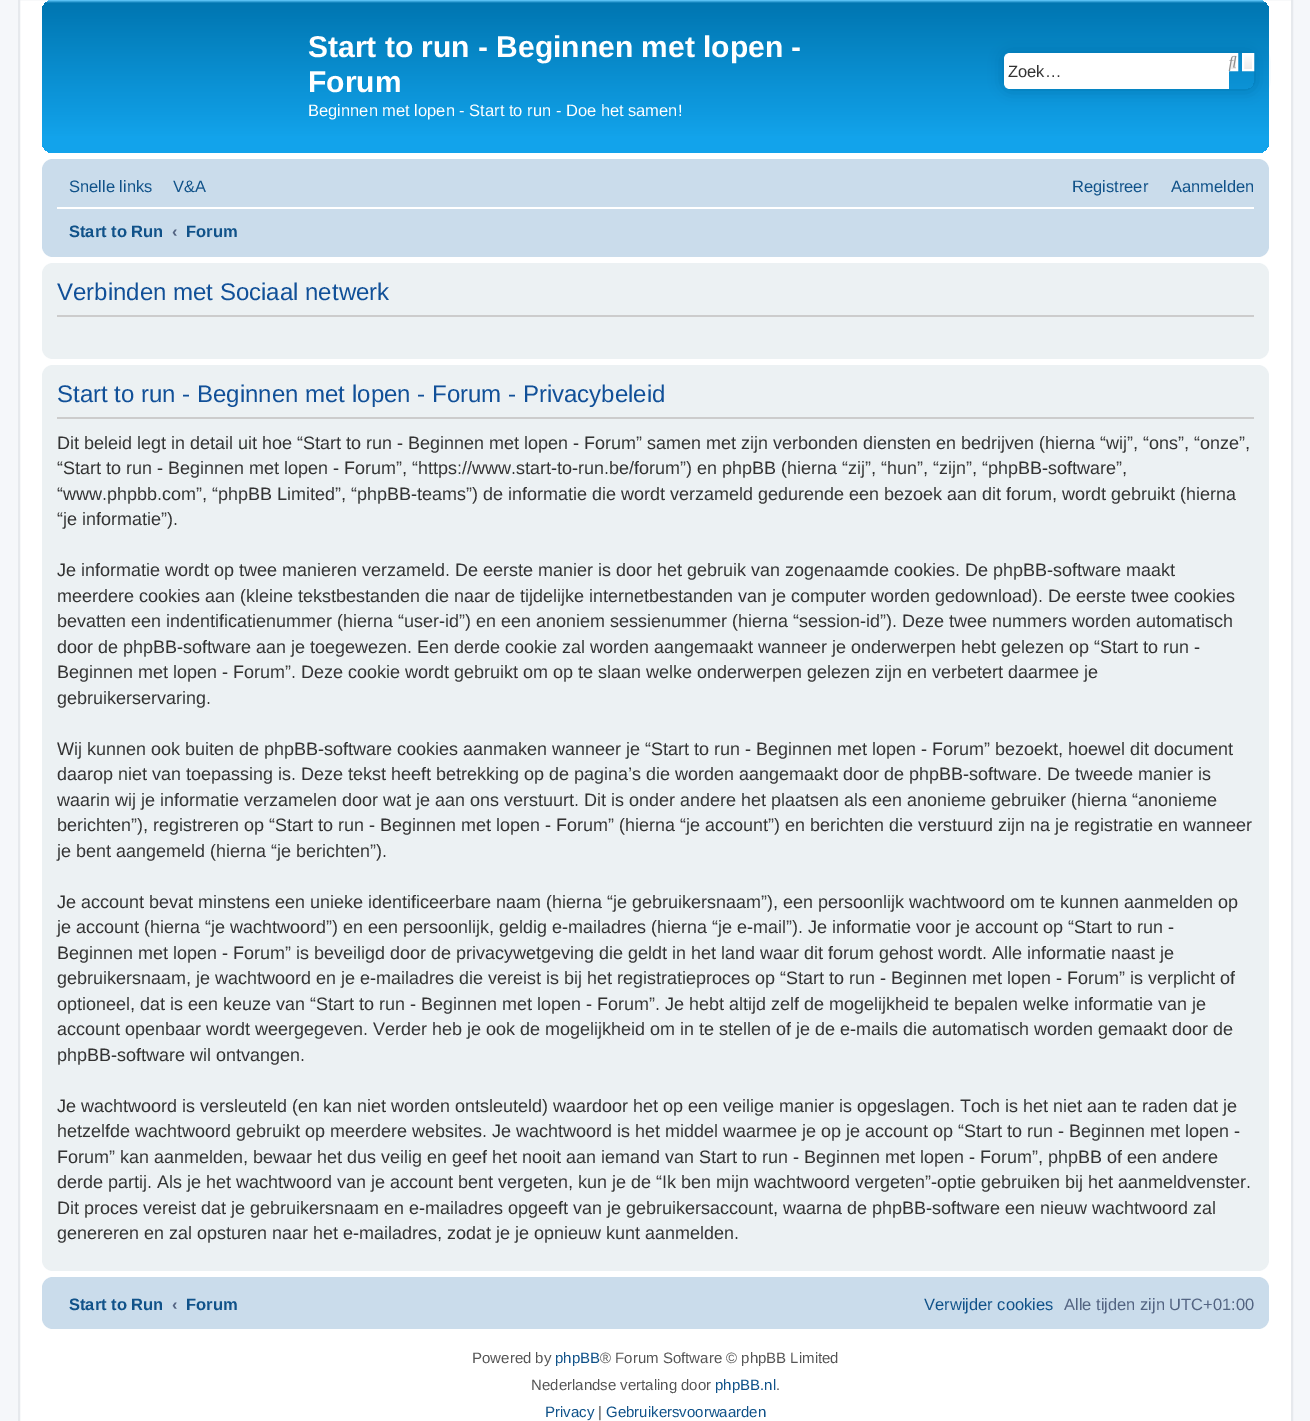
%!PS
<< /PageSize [1310 1421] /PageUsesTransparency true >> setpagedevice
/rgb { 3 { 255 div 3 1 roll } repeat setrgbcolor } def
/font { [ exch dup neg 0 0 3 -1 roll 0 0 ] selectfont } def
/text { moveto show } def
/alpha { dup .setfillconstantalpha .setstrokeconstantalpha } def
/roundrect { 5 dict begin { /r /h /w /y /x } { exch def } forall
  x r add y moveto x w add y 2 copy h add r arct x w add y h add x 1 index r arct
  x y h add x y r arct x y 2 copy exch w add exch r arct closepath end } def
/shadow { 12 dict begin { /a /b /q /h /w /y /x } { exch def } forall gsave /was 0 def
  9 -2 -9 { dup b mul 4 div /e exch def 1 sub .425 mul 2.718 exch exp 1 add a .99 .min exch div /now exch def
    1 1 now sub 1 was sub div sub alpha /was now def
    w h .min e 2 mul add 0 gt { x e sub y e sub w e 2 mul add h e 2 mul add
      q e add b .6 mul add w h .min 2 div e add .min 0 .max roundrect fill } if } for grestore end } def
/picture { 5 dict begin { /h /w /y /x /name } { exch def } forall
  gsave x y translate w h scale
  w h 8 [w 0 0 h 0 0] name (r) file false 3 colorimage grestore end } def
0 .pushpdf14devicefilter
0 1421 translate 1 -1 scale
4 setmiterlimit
245 247 250 rgb
0 0 1310 1421 rectfill
255 255 255 rgb
19 -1 moveto 1273 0 rlineto 0 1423 rlineto -1273 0 rlineto closepath gsave fill grestore
230 233 237 rgb
2 setlinewidth
stroke
gsave 42 0 1227 153 11 roundrect clip newpath
<< /ShadingType 2 /ColorSpace /DeviceRGB /Coords [656 0 656 153] /Extend [true true] /Function << /FunctionType 3 /Domain [0 1] /Functions [<< /FunctionType 2 /Domain [0 1] /C0 [0.416 0.808 1] /C1 [0 0.463 0.694] /N 1 >> << /FunctionType 2 /Domain [0 1] /C0 [0 0.463 0.694] /C1 [0.071 0.639 0.922] /N 1 >> << /FunctionType 2 /Domain [0 1] /C0 [0.071 0.639 0.922] /C1 [0.071 0.639 0.922] /N 1 >>] /Bounds [0.02 0.9] /Encode [0 1 0 1 0 1] >> >> shfill grestore
gsave
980 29 moveto 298 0 rlineto 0 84 rlineto -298 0 rlineto closepath 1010 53 moveto 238 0 rlineto 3.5 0 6 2.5 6 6 rcurveto 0 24 rlineto 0 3.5 -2.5 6 -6 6 rcurveto -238 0 rlineto -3.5 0 -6 -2.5 -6 -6 rcurveto 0 -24 rlineto 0 -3.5 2.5 -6 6 -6 rcurveto closepath eoclip newpath
0 117 176 rgb
1004 53 250 36 6 7.5 1 shadow
grestore
255 255 255 rgb
1010 53 moveto 219 0 rlineto 0 36 rlineto -219 0 rlineto -3.5 0 -6 -2.5 -6 -6 rcurveto 0 -24 rlineto 0 -3.5 2.5 -6 6 -6 rcurveto closepath fill
gsave 1231 55 moveto 5 0 rlineto 0 14 rlineto -5 0 rlineto closepath clip newpath
<< /ShadingType 2 /ColorSpace /DeviceRGB /Coords [1233 53 1233 71] /Extend [true true] /Function << /FunctionType 2 /Domain [0 1] /C0 [1 1 1] /C1 [0.914 0.914 0.914] /N 1 >> >> shfill grestore
1230 54 7 16 rectstroke
(img_01.rgb) 1228 55 9 16 picture
gsave 1244 55 moveto 8 0 rlineto 0 14 rlineto -8 0 rlineto closepath clip newpath
<< /ShadingType 2 /ColorSpace /DeviceRGB /Coords [1248 53 1248 71] /Extend [true true] /Function << /FunctionType 2 /Domain [0 1] /C0 [1 1 1] /C1 [0.914 0.914 0.914] /N 1 >> >> shfill grestore
1243 54 10 16 rectstroke
202 220 235 rgb
42 159 1227 98 11 roundrect fill
255 255 255 rgb
57 207 1197 2 rectfill
236 241 243 rgb
42 263 1227 96 11 roundrect fill
204 204 204 rgb
57 315 1197 2 rectfill
236 241 243 rgb
42 365 1227 906 11 roundrect fill
204 204 204 rgb
57 417 1197 2 rectfill
202 220 235 rgb
42 1277 1227 52 11 roundrect fill
/LiberationSans-Bold 30 font
255 255 255 rgb
(Start to run - Beginnen met lopen -) 308 57 text
(Forum) 308 92 text
/LiberationSans-Regular 16.5 font
(Beginnen met lopen - Start to run - Doe het samen!) 308 116 text
51 51 51 rgb
(Zoek…) 1008 77 text
16 82 137 rgb
(Snelle links) 69 192 text
(V&A) 173 192 text
(Registreer) 1072 192 text
(Aanmelden) 1171 192 text
/LiberationSans-Bold 16.5 font
(Start to Run) 69 237 text
83 100 130 rgb
(‹) 172 237 text
16 82 137 rgb
(Forum) 186 237 text
/LiberationSans-Regular 24 font
17 80 152 rgb
(Verbinden met Sociaal netwerk) 57 300 text
(Start to run - Beginnen met lopen - Forum - Privacybeleid) 57 402 text
/LiberationSans-Regular 18 font
51 51 51 rgb
(Dit beleid legt in detail uit hoe “Start to run - Beginnen met lopen - Forum” samen met zijn verbonden diensten en bedrijven \(hierna “wij”, “ons”, “onze”,) 57 449 text
(“Start to run - Beginnen met lopen - Forum”, “https://www.start-to-run.be/forum”\) en phpBB \(hierna “zij”, “hun”, “zijn”, “phpBB-software”,) 57 474 text
(“www.phpbb.com”, “phpBB Limited”, “phpBB-teams”\) de informatie die wordt verzameld gedurende een bezoek aan dit forum, wordt gebruikt \(hierna) 57 500 text
(“je informatie”\).) 57 525 text
(Je informatie wordt op twee manieren verzameld. De eerste manier is door het gebruik van zogenaamde cookies. De phpBB-software maakt) 57 576 text
(meerdere cookies aan \(kleine tekstbestanden die naar de tijdelijke internetbestanden van je computer worden gedownload\). De eerste twee cookies) 57 602 text
(bevatten een indentificatienummer \(hierna “user-id”\) en een anoniem sessienummer \(hierna “session-id”\). Deze twee nummers worden automatisch) 57 627 text
(door de phpBB-software aan je toegewezen. Een derde cookie zal worden aangemaakt wanneer je onderwerpen hebt gelezen op “Start to run -) 57 653 text
(Beginnen met lopen - Forum”. Deze cookie wordt gebruikt om op te slaan welke onderwerpen gelezen zijn en verbetert daarmee je) 57 678 text
(gebruikerservaring.) 57 704 text
(Wij kunnen ook buiten de phpBB-software cookies aanmaken wanneer je “Start to run - Beginnen met lopen - Forum” bezoekt, hoewel dit document) 57 755 text
(daarop niet van toepassing is. Deze tekst heeft betrekking op de pagina’s die worden aangemaakt door de phpBB-software. De tweede manier is) 57 780 text
(waarin wij je informatie verzamelen door wat je aan ons verstuurt. Dit is onder andere het plaatsen als een anonieme gebruiker \(hierna “anonieme) 57 806 text
(berichten”\), registreren op “Start to run - Beginnen met lopen - Forum” \(hierna “je account”\) en berichten die verstuurd zijn na je registratie en wanneer) 57 831 text
(je bent aangemeld \(hierna “je berichten”\).) 57 857 text
(Je account bevat minstens een unieke identificeerbare naam \(hierna “je gebruikersnaam”\), een persoonlijk wachtwoord om te kunnen aanmelden op) 57 908 text
(je account \(hierna “je wachtwoord”\) en een persoonlijk, geldig e-mailadres \(hierna “je e-mail”\). Je informatie voor je account op “Start to run -) 57 933 text
(Beginnen met lopen - Forum” is beveiligd door de privacywetgeving die geldt in het land waar dit forum gehost wordt. Alle informatie naast je) 57 959 text
(gebruikersnaam, je wachtwoord en je e-mailadres die vereist is bij het registratieproces op “Start to run - Beginnen met lopen - Forum” is verplicht of) 57 984 text
(optioneel, dat is een keuze van “Start to run - Beginnen met lopen - Forum”. Je hebt altijd zelf de mogelijkheid te bepalen welke informatie van je) 57 1010 text
(account openbaar wordt weergegeven. Verder heb je ook de mogelijkheid om in te stellen of je de e-mails die automatisch worden gemaakt door de) 57 1035 text
(phpBB-software wil ontvangen.) 57 1061 text
(Je wachtwoord is versleuteld \(en kan niet worden ontsleuteld\) waardoor het op een veilige manier is opgeslagen. Toch is het niet aan te raden dat je) 57 1112 text
(hetzelfde wachtwoord gebruikt op meerdere websites. Je wachtwoord is het middel waarmee je op je account op “Start to run - Beginnen met lopen -) 57 1137 text
(Forum” kan aanmelden, bewaar het dus veilig en geef het nooit aan iemand van Start to run - Beginnen met lopen - Forum”, phpBB of een andere) 57 1163 text
(derde partij. Als je het wachtwoord van je account bent vergeten, kun je de “Ik ben mijn wachtwoord vergeten”-optie gebruiken bij het aanmeldvenster.) 57 1188 text
(Dit proces vereist dat je gebruikersnaam en e-mailadres opgeeft van je gebruikersaccount, waarna de phpBB-software een nieuw wachtwoord zal) 57 1214 text
(genereren en zal opsturen naar het e-mailadres, zodat je je opnieuw kunt aanmelden.) 57 1239 text
/LiberationSans-Bold 16.5 font
16 82 137 rgb
(Start to Run) 69 1310 text
83 100 130 rgb
(‹) 172 1310 text
16 82 137 rgb
(Forum) 186 1310 text
/LiberationSans-Regular 16.5 font
(Verwijder cookies) 924 1310 text
83 100 130 rgb
(Alle tijden zijn UTC+01:00) 1064 1310 text
/LiberationSans-Regular 15 font
85 85 85 rgb
(Powered by) 472 1363 text
16 82 137 rgb
(phpBB) 555 1363 text
85 85 85 rgb
(® Forum Software © phpBB Limited) 600 1363 text
(Nederlandse vertaling door) 531 1390 text
16 82 137 rgb
(phpBB.nl) 715 1390 text
85 85 85 rgb
(.) 776 1390 text
16 82 137 rgb
(Privacy) 545 1417 text
85 85 85 rgb
(|) 598 1417 text
16 82 137 rgb
(Gebruikersvoorwaarden) 606 1417 text
.poppdf14devicefilter showpage
